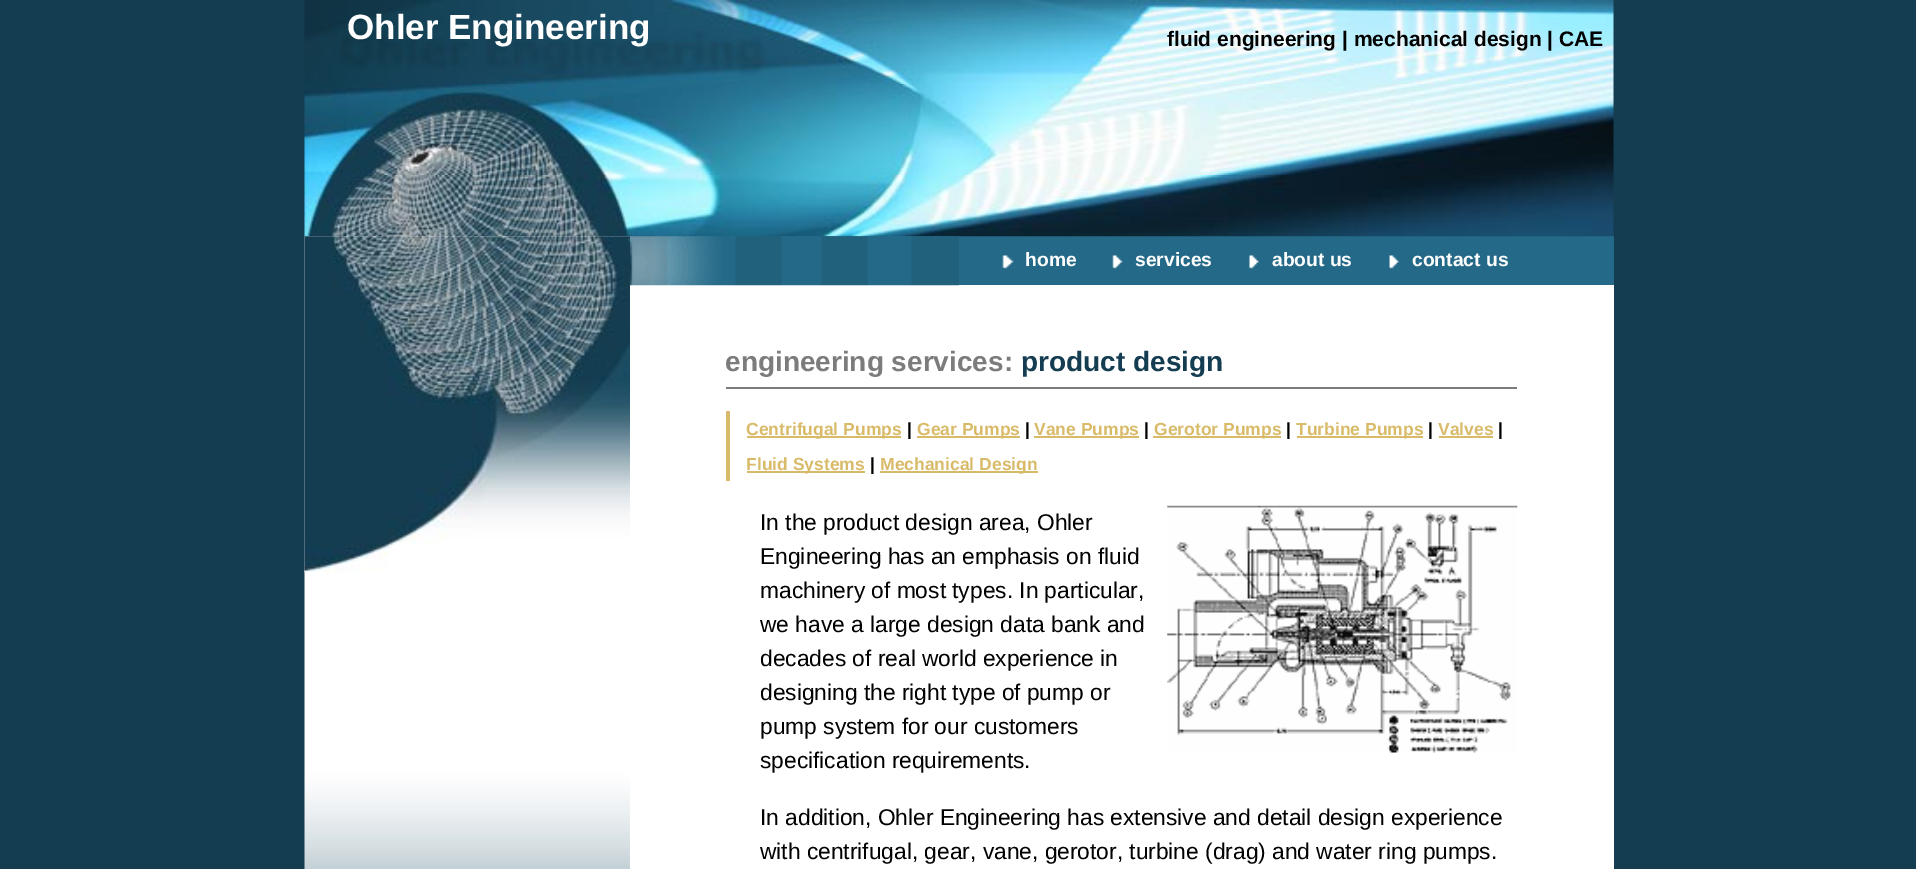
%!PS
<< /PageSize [1916 869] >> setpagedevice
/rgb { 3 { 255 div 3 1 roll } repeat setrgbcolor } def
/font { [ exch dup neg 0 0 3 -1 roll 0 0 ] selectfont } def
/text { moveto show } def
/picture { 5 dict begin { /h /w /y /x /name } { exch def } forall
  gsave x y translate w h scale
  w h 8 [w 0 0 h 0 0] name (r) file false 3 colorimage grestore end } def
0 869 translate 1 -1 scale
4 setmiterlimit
20 61 81 rgb
0 0 1916 869 rectfill
(img_01.rgb) 304 0 1310 84 picture
(img_02.rgb) 304 84 1310 91 picture
(img_04.rgb) 304 236 326 633 picture
36 105 135 rgb
630 236 984 49 rectfill
(img_03.rgb) 304 175 1310 62 picture
(img_05.rgb) 304 236 326 337 picture
255 255 255 rgb
630 285 984 584 rectfill
(img_06.rgb) 630 236 329 50 picture
(img_07.rgb) 1002 255 12 14 picture
(img_08.rgb) 1112 255 11 14 picture
(img_09.rgb) 1249 255 10 14 picture
(img_10.rgb) 1389 255 10 14 picture
124 124 124 rgb
726 387 791 2 rectfill
216 186 104 rgb
726 411 4 70 rectfill
747 436 154 2 rectfill
917 436 103 2 rectfill
1034 436 105 2 rectfill
1153 436 128 2 rectfill
1297 436 126 2 rectfill
1439 436 54 2 rectfill
747 471 118 2 rectfill
880 471 158 2 rectfill
(img_11.rgb) 1167 505 351 248 picture
/LiberationSans-Bold 35 font
255 255 255 rgb
(Ohler Engineering) 347 39 text
/LiberationSans-Bold 21 font
0 0 0 rgb
(fluid engineering | mechanical design | CAE) 1167 46 text
/LiberationSans-Bold 19.25 font
255 255 255 rgb
(home) 1025 266 text
(services) 1135 266 text
(about us) 1272 266 text
(contact us) 1412 266 text
/LiberationSans-Bold 28 font
124 124 124 rgb
(engineering services:) 725 371 text
20 61 81 rgb
(product design) 1021 371 text
/LiberationSans-Bold 17.5 font
216 186 104 rgb
(Centrifugal Pumps) 746 435 text
0 0 0 rgb
(|) 907 435 text
216 186 104 rgb
(Gear Pumps) 917 435 text
0 0 0 rgb
(|) 1025 435 text
216 186 104 rgb
(Vane Pumps) 1034 435 text
0 0 0 rgb
(|) 1144 435 text
216 186 104 rgb
(Gerotor Pumps) 1154 435 text
0 0 0 rgb
(|) 1286 435 text
216 186 104 rgb
(Turbine Pumps) 1296 435 text
0 0 0 rgb
(|) 1428 435 text
216 186 104 rgb
(Valves) 1438 435 text
0 0 0 rgb
(|) 1498 435 text
216 186 104 rgb
(Fluid Systems) 746 470 text
0 0 0 rgb
(|) 870 470 text
216 186 104 rgb
(Mechanical Design) 880 470 text
/LiberationSans-Regular 22.75 font
0 0 0 rgb
(In the product design area, Ohler) 760 530 text
(Engineering has an emphasis on fluid) 760 564 text
(machinery of most types. In particular,) 760 598 text
(we have a large design data bank and) 760 632 text
(decades of real world experience in) 760 666 text
(designing the right type of pump or) 760 700 text
(pump system for our customers) 760 734 text
(specification requirements.) 760 768 text
(In addition, Ohler Engineering has extensive and detail design experience) 760 825 text
(with centrifugal, gear, vane, gerotor, turbine \(drag\) and water ring pumps.) 760 859 text
showpage
